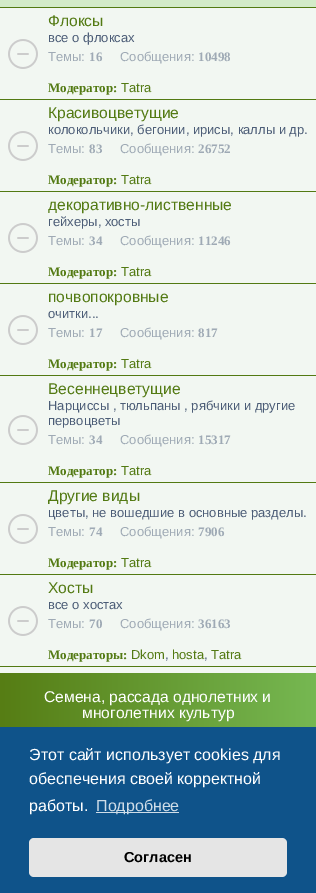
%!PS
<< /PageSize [316 893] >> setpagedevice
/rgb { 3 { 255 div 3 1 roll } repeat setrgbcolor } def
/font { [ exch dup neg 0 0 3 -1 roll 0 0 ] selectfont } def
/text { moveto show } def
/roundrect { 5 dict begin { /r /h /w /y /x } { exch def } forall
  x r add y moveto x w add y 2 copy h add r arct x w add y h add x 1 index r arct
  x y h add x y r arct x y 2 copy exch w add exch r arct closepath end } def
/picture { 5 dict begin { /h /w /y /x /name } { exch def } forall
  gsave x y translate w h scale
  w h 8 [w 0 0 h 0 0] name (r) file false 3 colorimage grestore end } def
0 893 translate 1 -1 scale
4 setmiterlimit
242 247 242 rgb
0 0 316 893 rectfill
211 235 201 rgb
0 0 316 7 rectfill
83 122 19 rgb
0 7 316 1 rectfill
0 99 316 1 rectfill
(img_01.rgb) 8 39 30 30 picture
0 191 316 1 rectfill
(img_01.rgb) 8 131 30 30 picture
0 283 316 1 rectfill
(img_01.rgb) 8 223 30 30 picture
0 375 316 1 rectfill
(img_01.rgb) 8 315 30 30 picture
0 482 316 1 rectfill
(img_01.rgb) 8 415 30 30 picture
0 574 316 1 rectfill
(img_01.rgb) 8 514 30 30 picture
0 666 316 1 rectfill
(img_01.rgb) 8 606 30 30 picture
gsave 0 673 moveto 316 0 rlineto 0 54 rlineto -316 0 rlineto closepath clip newpath
<< /ShadingType 2 /ColorSpace /DeviceRGB /Coords [0 706 316 706] /Extend [true true] /Function << /FunctionType 2 /Domain [0 1] /C0 [0.337 0.49 0.078] /C1 [0.463 0.722 0.322] /N 1 >> >> shfill grestore
15 83 138 rgb
0 727 316 166 rectfill
207 221 232 rgb
96 812 83 1 rectfill
229 229 229 rgb
29 838 258 39 5 roundrect fill
/LiberationSans-Regular 15.6 font
83 122 19 rgb
(Флоксы) 48 26 text
/LiberationSans-Regular 13 font
76 93 119 rgb
(все о флоксах) 48 42 text
159 170 181 rgb
(Темы:) 48 61 text
/LiberationSerif-Bold 13 font
(16) 89 61 text
/LiberationSans-Regular 13 font
(Сообщения:) 120 61 text
/LiberationSerif-Bold 13 font
(10498) 198 61 text
83 122 19 rgb
(Модератор:) 48 92 text
/LiberationSans-Regular 13 font
(Tatra) 121 92 text
/LiberationSans-Regular 15.6 font
(Красивоцветущие) 48 118 text
/LiberationSans-Regular 13 font
76 93 119 rgb
(колокольчики, бегонии, ирисы, каллы и др.) 48 134 text
159 170 181 rgb
(Темы:) 48 153 text
/LiberationSerif-Bold 13 font
(83) 89 153 text
/LiberationSans-Regular 13 font
(Сообщения:) 120 153 text
/LiberationSerif-Bold 13 font
(26752) 198 153 text
83 122 19 rgb
(Модератор:) 48 184 text
/LiberationSans-Regular 13 font
(Tatra) 121 184 text
/LiberationSans-Regular 15.6 font
(декоративно-лиственные) 48 210 text
/LiberationSans-Regular 13 font
76 93 119 rgb
(гейхеры, хосты) 48 226 text
159 170 181 rgb
(Темы:) 48 245 text
/LiberationSerif-Bold 13 font
(34) 89 245 text
/LiberationSans-Regular 13 font
(Сообщения:) 120 245 text
/LiberationSerif-Bold 13 font
(11246) 198 245 text
83 122 19 rgb
(Модератор:) 48 276 text
/LiberationSans-Regular 13 font
(Tatra) 121 276 text
/LiberationSans-Regular 15.6 font
(почвопокровные) 48 302 text
/LiberationSans-Regular 13 font
76 93 119 rgb
(очитки...) 48 318 text
159 170 181 rgb
(Темы:) 48 337 text
/LiberationSerif-Bold 13 font
(17) 89 337 text
/LiberationSans-Regular 13 font
(Сообщения:) 120 337 text
/LiberationSerif-Bold 13 font
(817) 198 337 text
83 122 19 rgb
(Модератор:) 48 368 text
/LiberationSans-Regular 13 font
(Tatra) 121 368 text
/LiberationSans-Regular 15.6 font
(Весеннецветущие) 48 394 text
/LiberationSans-Regular 13 font
76 93 119 rgb
(Нарциссы , тюльпаны , рябчики и другие) 48 410 text
(первоцветы) 48 425 text
159 170 181 rgb
(Темы:) 48 444 text
/LiberationSerif-Bold 13 font
(34) 89 444 text
/LiberationSans-Regular 13 font
(Сообщения:) 120 444 text
/LiberationSerif-Bold 13 font
(15317) 198 444 text
83 122 19 rgb
(Модератор:) 48 475 text
/LiberationSans-Regular 13 font
(Tatra) 121 475 text
/LiberationSans-Regular 15.6 font
(Другие виды) 48 501 text
/LiberationSans-Regular 13 font
76 93 119 rgb
(цветы, не вошедшие в основные разделы.) 48 517 text
159 170 181 rgb
(Темы:) 48 536 text
/LiberationSerif-Bold 13 font
(74) 89 536 text
/LiberationSans-Regular 13 font
(Сообщения:) 120 536 text
/LiberationSerif-Bold 13 font
(7906) 198 536 text
83 122 19 rgb
(Модератор:) 48 567 text
/LiberationSans-Regular 13 font
(Tatra) 121 567 text
/LiberationSans-Regular 15.6 font
(Хосты) 48 593 text
/LiberationSans-Regular 13 font
76 93 119 rgb
(все о хостах) 48 609 text
159 170 181 rgb
(Темы:) 48 628 text
/LiberationSerif-Bold 13 font
(70) 89 628 text
/LiberationSans-Regular 13 font
(Сообщения:) 120 628 text
/LiberationSerif-Bold 13 font
(36163) 198 628 text
83 122 19 rgb
(Модераторы:) 48 659 text
/LiberationSans-Regular 13 font
(Dkom) 131 659 text
76 93 119 rgb
(,) 165 659 text
83 122 19 rgb
(hosta) 172 659 text
76 93 119 rgb
(,) 204 659 text
83 122 19 rgb
(Tatra) 211 659 text
/LiberationSans-Regular 15.6 font
255 255 255 rgb
(Семена, рассада однолетних и) 44 702 text
(многолетних культур) 82 718 text
/LiberationSans-Regular 16 font
(Этот сайт использует cookies для) 29 760 text
(обеспечения своей корректной) 29 784 text
(работы.) 29 811 text
207 221 232 rgb
(Подробнее) 96 811 text
/LiberationSans-Bold 14.5 font
0 0 0 rgb
(Согласен) 124 862 text
showpage
